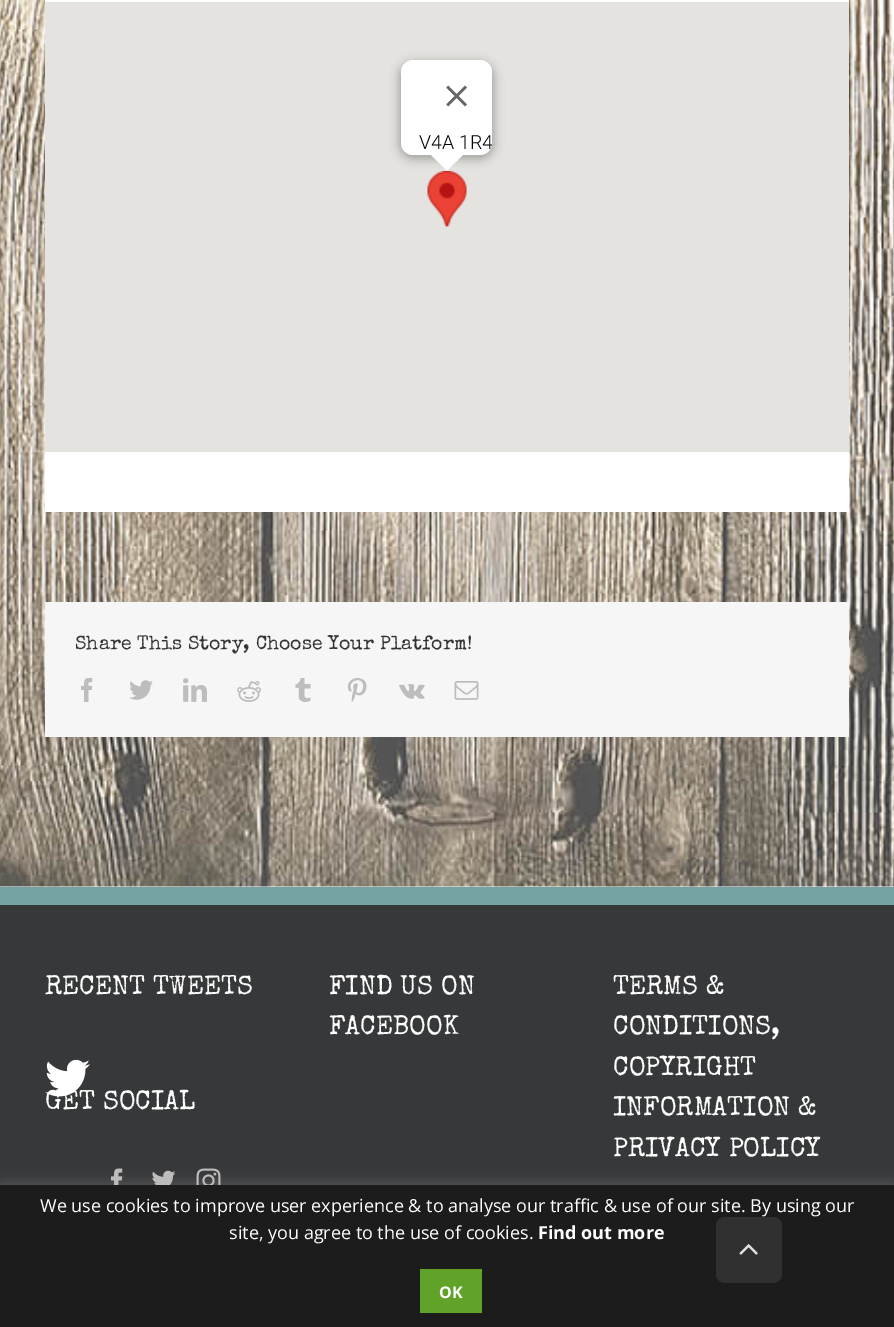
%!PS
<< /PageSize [894 1327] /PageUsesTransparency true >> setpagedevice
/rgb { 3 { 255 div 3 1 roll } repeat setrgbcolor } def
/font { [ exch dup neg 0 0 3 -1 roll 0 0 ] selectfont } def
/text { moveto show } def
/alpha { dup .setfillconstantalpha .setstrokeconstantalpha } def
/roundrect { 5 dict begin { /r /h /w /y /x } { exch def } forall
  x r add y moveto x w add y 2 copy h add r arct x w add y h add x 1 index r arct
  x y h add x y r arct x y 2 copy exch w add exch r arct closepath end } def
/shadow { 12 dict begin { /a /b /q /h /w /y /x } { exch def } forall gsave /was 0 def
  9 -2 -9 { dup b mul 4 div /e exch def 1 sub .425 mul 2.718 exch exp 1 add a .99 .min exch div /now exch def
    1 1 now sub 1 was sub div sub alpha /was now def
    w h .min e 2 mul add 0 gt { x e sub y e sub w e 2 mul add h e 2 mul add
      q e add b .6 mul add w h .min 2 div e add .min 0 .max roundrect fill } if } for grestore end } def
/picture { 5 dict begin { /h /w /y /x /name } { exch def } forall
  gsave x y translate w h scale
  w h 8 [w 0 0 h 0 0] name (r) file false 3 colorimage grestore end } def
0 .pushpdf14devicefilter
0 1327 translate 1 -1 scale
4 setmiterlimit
255 255 255 rgb
0 0 894 1327 rectfill
(img_01.rgb) 0 0 894 887 picture
45 0 804 512 rectfill
229 227 223 rgb
45 2 804 450 rectfill
(img_03.rgb) 427 171 40 56 picture
0 0 0 rgb
399 62 95 97 14 5 0.3 shadow
255 255 255 rgb
401 60 91 95 12 roundrect fill
(img_02.rgb) 446 85 21 22 picture
429 153 moveto 18 17.5 rlineto 18 -17.5 rlineto closepath fill
246 246 246 rgb
45 602 804 135 rectfill
(img_04.rgb) 81 678 12 24 picture
(img_05.rgb) 129 680 24 20 picture
(img_06.rgb) 183 678 24 24 picture
(img_07.rgb) 237 681 24 21 picture
(img_08.rgb) 295 678 16 24 picture
(img_09.rgb) 347 678 20 24 picture
(img_10.rgb) 399 684 26 15 picture
(img_11.rgb) 454 681 25 19 picture
54 56 57 rgb
0 905 894 280 rectfill
117 163 163 rgb
0 887 894 18 rectfill
(img_13.rgb) 111 1168 12 17 picture
(img_14.rgb) 152 1170 24 15 picture
(img_15.rgb) 196 1168 25 17 picture
172 171 171 rgb
0 1184 894 142 0 7.5 0.3 shadow
28 28 28 rgb
0 1185 894 142 rectfill
97 162 41 rgb
420 1269 62 44 rectfill
48 48 48 rgb
716 1217 66 66 9 roundrect fill
(img_16.rgb) 739 1244 19 11 picture
gsave
401 60 91 95 12 roundrect clip newpath
/Roboto-Light 19.5 font
0 0 0 rgb
(V4A 1R4) 419 149 text
grestore
/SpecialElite-Regular 19.5 font
51 51 51 rgb
(Share This Story, Choose Your Platform!) 75 649 text
/SpecialElite-Regular 27 font
255 255 255 rgb
(RECENT TWEETS) 45 994 text
(GET SOCIAL) 45 1109 text
(img_12.rgb) 45 1059 45 38 picture
(FIND US ON) 329 994 text
(FACEBOOK) 329 1034 text
(TERMS &) 613 994 text
(CONDITIONS,) 613 1034 text
(COPYRIGHT) 613 1075 text
(INFORMATION &) 613 1115 text
(PRIVACY POLICY) 613 1156 text
/OpenSans-Regular 18 font
(We use cookies to improve user experience & to analyse our traffic & use of our site. By using our) 40 1212 text
(site, you agree to the use of cookies.) 229 1239 text
/OpenSans-Bold 18 font
(Find out more) 538 1239 text
/OpenSans-Bold 16 font
(OK) 439 1298 text
.poppdf14devicefilter showpage
